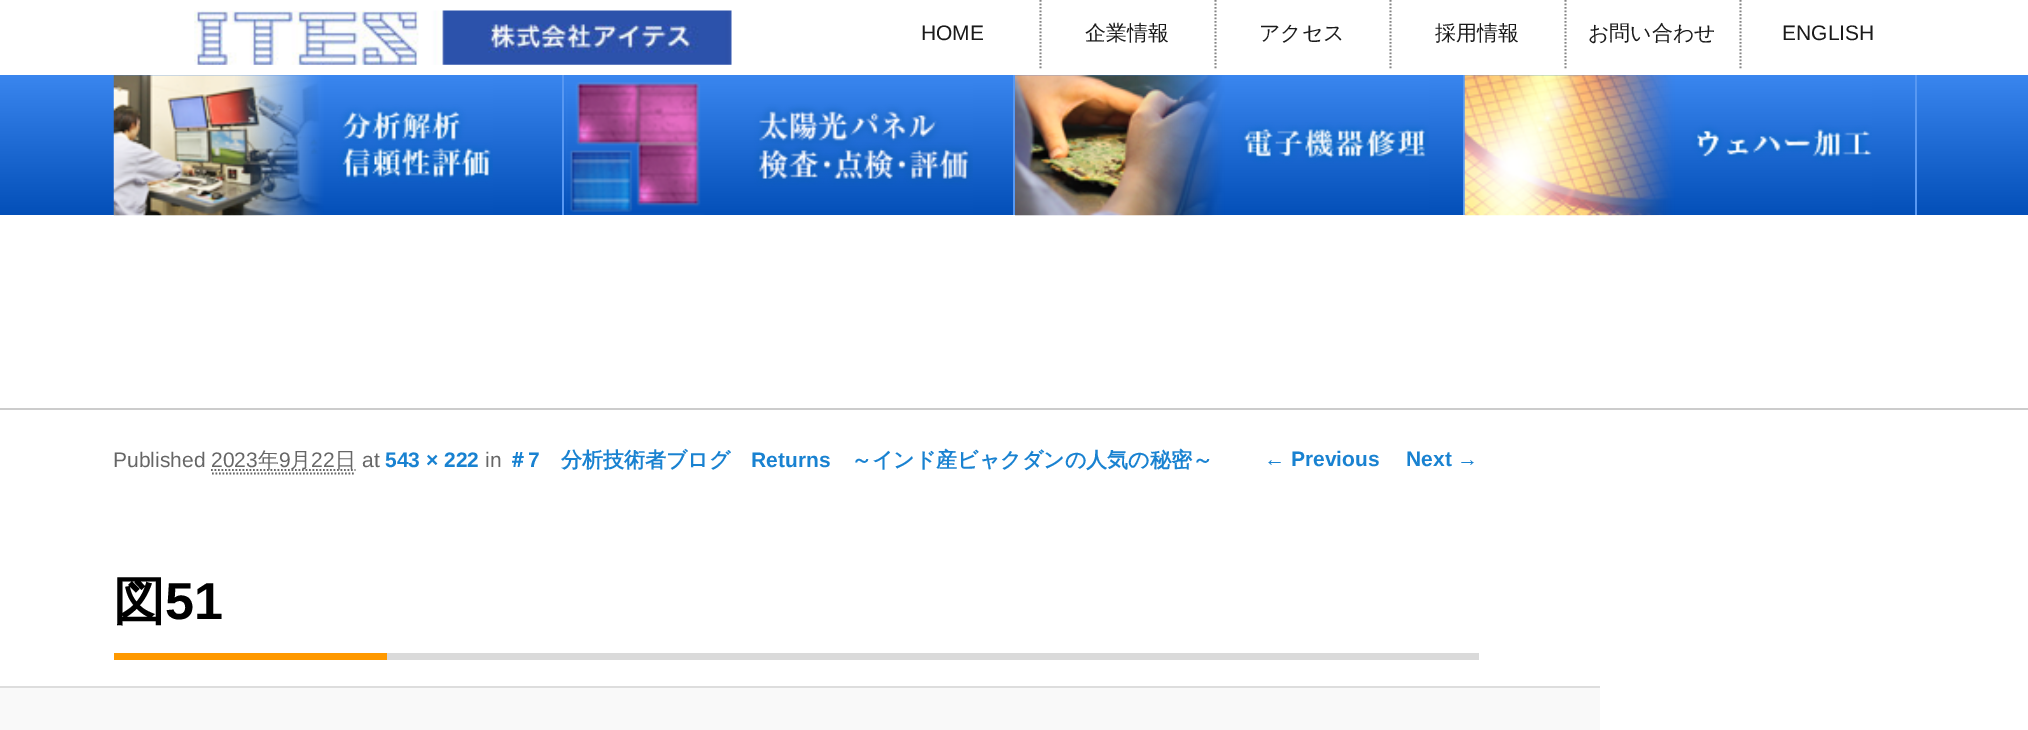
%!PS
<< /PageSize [2028 730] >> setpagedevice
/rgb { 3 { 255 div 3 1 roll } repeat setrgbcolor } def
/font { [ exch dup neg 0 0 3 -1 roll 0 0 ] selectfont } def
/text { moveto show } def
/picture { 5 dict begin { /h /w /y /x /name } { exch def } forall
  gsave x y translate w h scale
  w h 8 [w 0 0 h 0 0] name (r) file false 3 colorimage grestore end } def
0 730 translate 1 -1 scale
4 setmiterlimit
255 255 255 rgb
0 0 2028 730 rectfill
(img_01.rgb) 194 10 538 55 picture
133 133 133 rgb
1.8 setlinewidth
[1.75 1.75] 0 setdash
1040.5 0 moveto 0 70 rlineto stroke
1215.5 0 moveto 0 70 rlineto stroke
1390.5 0 moveto 0 70 rlineto stroke
1565.5 0 moveto 0 70 rlineto stroke
1740.5 0 moveto 0 70 rlineto stroke
gsave 0 75 moveto 2028 0 rlineto 0 140 rlineto -2028 0 rlineto closepath clip newpath
<< /ShadingType 2 /ColorSpace /DeviceRGB /Coords [1014 75 1014 215] /Extend [true true] /Function << /FunctionType 2 /Domain [0 1] /C0 [0.227 0.525 0.937] /C1 [0.012 0.31 0.722] /N 1 >> >> shfill grestore
88 152 242 rgb
562 75 2 140 rectfill
(img_02.rgb) 113 75 380 141 picture
1013 75 2 140 rectfill
(img_03.rgb) 566 82 407 133 picture
1463 75 2 140 rectfill
(img_04.rgb) 1015 75 414 141 picture
1915 75 2 140 rectfill
(img_05.rgb) 1464 75 408 141 picture
204 204 204 rgb
0 408 2028 2 rectfill
102 102 102 rgb
212 473.5 moveto 143 0 rlineto stroke
211 470 moveto 144.5 0 rlineto stroke
255 153 0 rgb
114 653 273 7 rectfill
218 218 218 rgb
387 653 1092 7 rectfill
249 249 249 rgb
0 688 1600 42 rectfill
221 221 221 rgb
0 686 1600 2 rectfill
/LiberationSans-Regular 21 font
26 26 26 rgb
(HOME) 921 40 text
/WenQuanYiZenHei-Medium 21 font
(企業情報) 1085 40 text
(アクセス) 1259 40 text
(採用情報) 1435 40 text
(お問い合わせ) 1588 40 text
/LiberationSans-Regular 21 font
(ENGLISH) 1782 40 text
102 102 102 rgb
(Published 2023) 113 467 text
/WenQuanYiZenHei-Medium 21 font
(年) 258 467 text
/LiberationSans-Regular 21 font
(9) 279 467 text
/WenQuanYiZenHei-Medium 21 font
(月) 290 467 text
/LiberationSans-Regular 21 font
(22) 311 467 text
/WenQuanYiZenHei-Medium 21 font
(日) 335 467 text
/LiberationSans-Regular 21 font
(at) 362 467 text
/LiberationSans-Bold 21 font
25 130 209 rgb
(543 × 222) 385 467 text
/LiberationSans-Regular 21 font
102 102 102 rgb
(in) 485 467 text
/WenQuanYiZenHei-Bold 21 font
25 130 209 rgb
(＃) 507 467 text
/LiberationSans-Bold 21 font
(7) 528 467 text
/WenQuanYiZenHei-Bold 21 font
(分析技術者ブログ) 561 467 text
/LiberationSans-Bold 21 font
(Returns) 751 467 text
/WenQuanYiZenHei-Bold 21 font
(～インド産ビャクダンの人気の秘密～) 851 467 text
/WenQuanYiZenHei-Bold 52 font
0 0 0 rgb
(図) 113 619 text
/LiberationSans-Bold 52 font
(51) 165 619 text
/LiberationSans-Bold 21 font
25 130 209 rgb
(← Previous) 1264 466 text
(Next →) 1406 466 text
showpage
